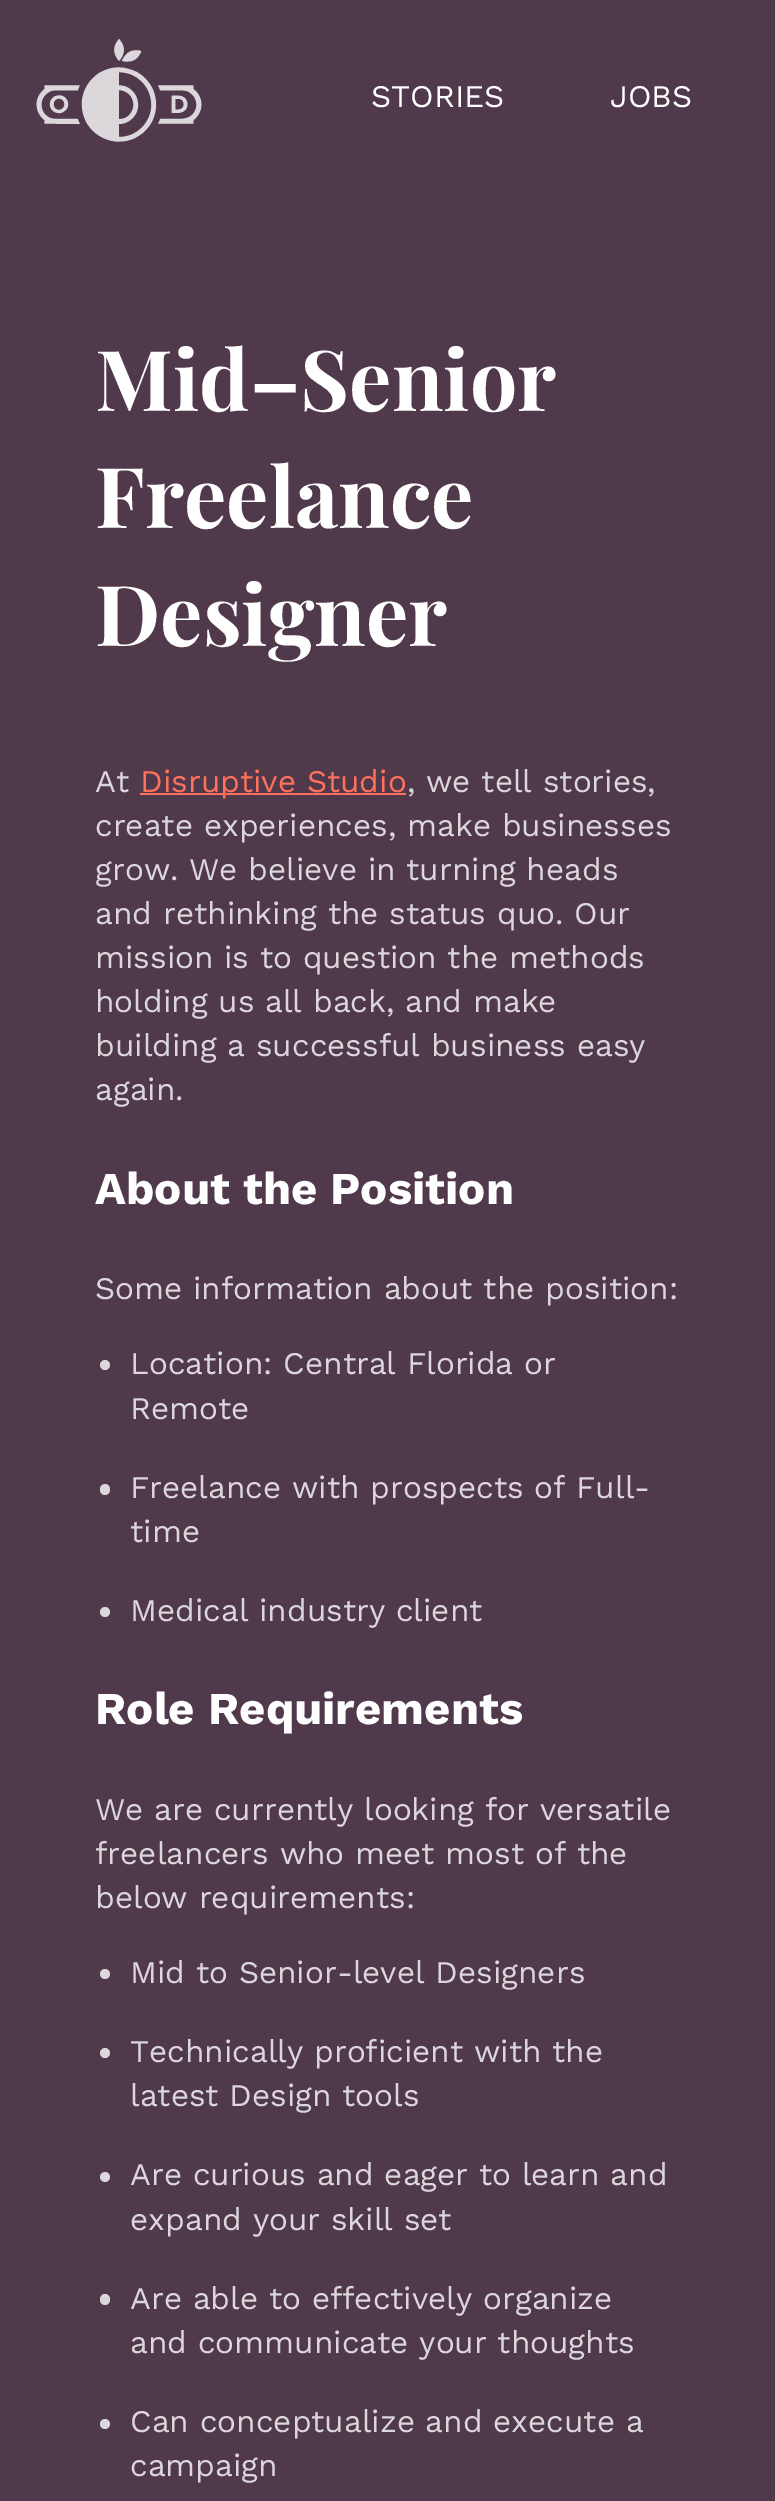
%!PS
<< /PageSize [775 2501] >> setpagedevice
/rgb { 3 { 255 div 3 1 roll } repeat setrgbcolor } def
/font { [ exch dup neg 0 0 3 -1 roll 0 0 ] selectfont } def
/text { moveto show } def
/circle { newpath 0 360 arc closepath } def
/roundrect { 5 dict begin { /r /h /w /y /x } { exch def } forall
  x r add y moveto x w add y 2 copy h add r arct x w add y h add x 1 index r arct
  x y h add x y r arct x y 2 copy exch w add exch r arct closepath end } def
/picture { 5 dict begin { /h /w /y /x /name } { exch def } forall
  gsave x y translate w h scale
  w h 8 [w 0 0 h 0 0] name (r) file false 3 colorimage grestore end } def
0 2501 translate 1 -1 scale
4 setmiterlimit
81 57 76 rgb
0 0 775 2501 rectfill
(img_01.rgb) 36 38 166 104 picture
255 113 91 rgb
140 793 266 2 rectfill
220 215 219 rgb
105 1365 5 circle fill
100 1484 10 11 5 roundrect fill
105 1612 5 circle fill
105 1974 5 circle fill
105 2053 5 circle fill
105 2177 5 circle fill
100 2294 10 11 5 roundrect fill
105 2424 5 circle fill
/WorkSans-Regular 31.5 font
255 255 255 rgb
(STORIES) 371 107 text
(JOBS) 610 107 text
/PlayfairDisplay-Bold 84 font
(Mid–Senior) 95 411 text
(Freelance) 95 528 text
(Designer) 95 646 text
/WorkSans-Regular 31.5 font
220 215 219 rgb
(At) 95 792 text
255 113 91 rgb
(Disruptive Studio) 140 792 text
220 215 219 rgb
(, we tell stories,) 407 792 text
(create experiences, make businesses) 95 836 text
(grow. We believe in turning heads) 95 880 text
(and rethinking the status quo. Our) 95 924 text
(mission is to question the methods) 95 968 text
(holding us all back, and make) 95 1012 text
(building a successful business easy) 95 1056 text
(again.) 95 1100 text
/WorkSans-Bold 45.5 font
255 255 255 rgb
(About the Position) 95 1204 text
/WorkSans-Regular 31.5 font
220 215 219 rgb
(Some information about the position:) 95 1299 text
(Location: Central Florida or) 130 1374 text
(Remote) 130 1419 text
(Freelance with prospects of Full-) 130 1498 text
(time) 130 1542 text
(Medical industry client) 130 1621 text
/WorkSans-Bold 45.5 font
255 255 255 rgb
(Role Requirements) 95 1724 text
/WorkSans-Regular 31.5 font
220 215 219 rgb
(We are currently looking for versatile) 95 1820 text
(freelancers who meet most of the) 95 1864 text
(below requirements:) 95 1908 text
(Mid to Senior-level Designers) 130 1983 text
(Technically proficient with the) 130 2062 text
(latest Design tools) 130 2106 text
(Are curious and eager to learn and) 130 2185 text
(expand your skill set) 130 2230 text
(Are able to effectively organize) 130 2309 text
(and communicate your thoughts) 130 2353 text
(Can conceptualize and execute a) 130 2432 text
(campaign) 130 2476 text
showpage
